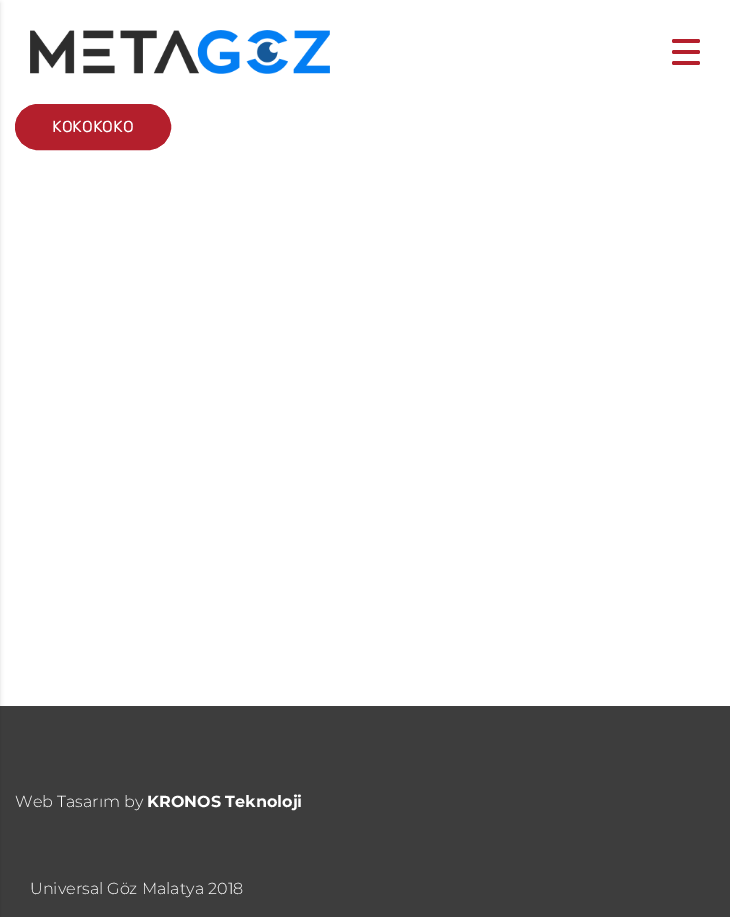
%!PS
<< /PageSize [730 917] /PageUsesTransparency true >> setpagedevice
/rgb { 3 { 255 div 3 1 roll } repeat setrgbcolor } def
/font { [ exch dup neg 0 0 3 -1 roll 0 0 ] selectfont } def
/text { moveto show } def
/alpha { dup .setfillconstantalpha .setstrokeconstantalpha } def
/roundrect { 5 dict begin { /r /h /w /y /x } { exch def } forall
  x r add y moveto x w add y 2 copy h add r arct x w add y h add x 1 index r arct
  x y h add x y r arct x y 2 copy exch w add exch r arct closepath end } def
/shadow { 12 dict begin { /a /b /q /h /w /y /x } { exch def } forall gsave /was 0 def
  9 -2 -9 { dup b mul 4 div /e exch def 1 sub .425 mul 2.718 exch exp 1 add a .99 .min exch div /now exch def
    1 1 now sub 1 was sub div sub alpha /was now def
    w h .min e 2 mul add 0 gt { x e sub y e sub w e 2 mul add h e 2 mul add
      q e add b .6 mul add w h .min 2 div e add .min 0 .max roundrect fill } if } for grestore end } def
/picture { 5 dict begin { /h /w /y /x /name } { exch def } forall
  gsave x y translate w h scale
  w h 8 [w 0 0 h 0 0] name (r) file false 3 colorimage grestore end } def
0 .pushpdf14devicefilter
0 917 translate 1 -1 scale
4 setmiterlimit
255 255 255 rgb
0 0 730 917 rectfill
61 61 61 rgb
0 706 730 211 rectfill
0 0 0 rgb
-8 3 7 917 0 2.5 0.2 shadow
(img_01.rgb) 30 30 300 44 picture
180 31 44 rgb
672 39 28 4 2 roundrect fill
672 50 28 4 2 roundrect fill
672 61 28 4 2 roundrect fill
15.5 104.5 155 45 22.5 roundrect gsave fill grestore
stroke
/Rubik-Regular 16 font
255 255 255 rgb
(KOKOKOKO) 52 132 text
/Montserrat-Light 16 font
(Web Tasarım by) 15 807 text
/Montserrat-Bold 16 font
(KRONOS Teknoloji) 147 807 text
/Montserrat-Light 16 font
(Universal Göz Malatya 2018) 30 894 text
.poppdf14devicefilter showpage
